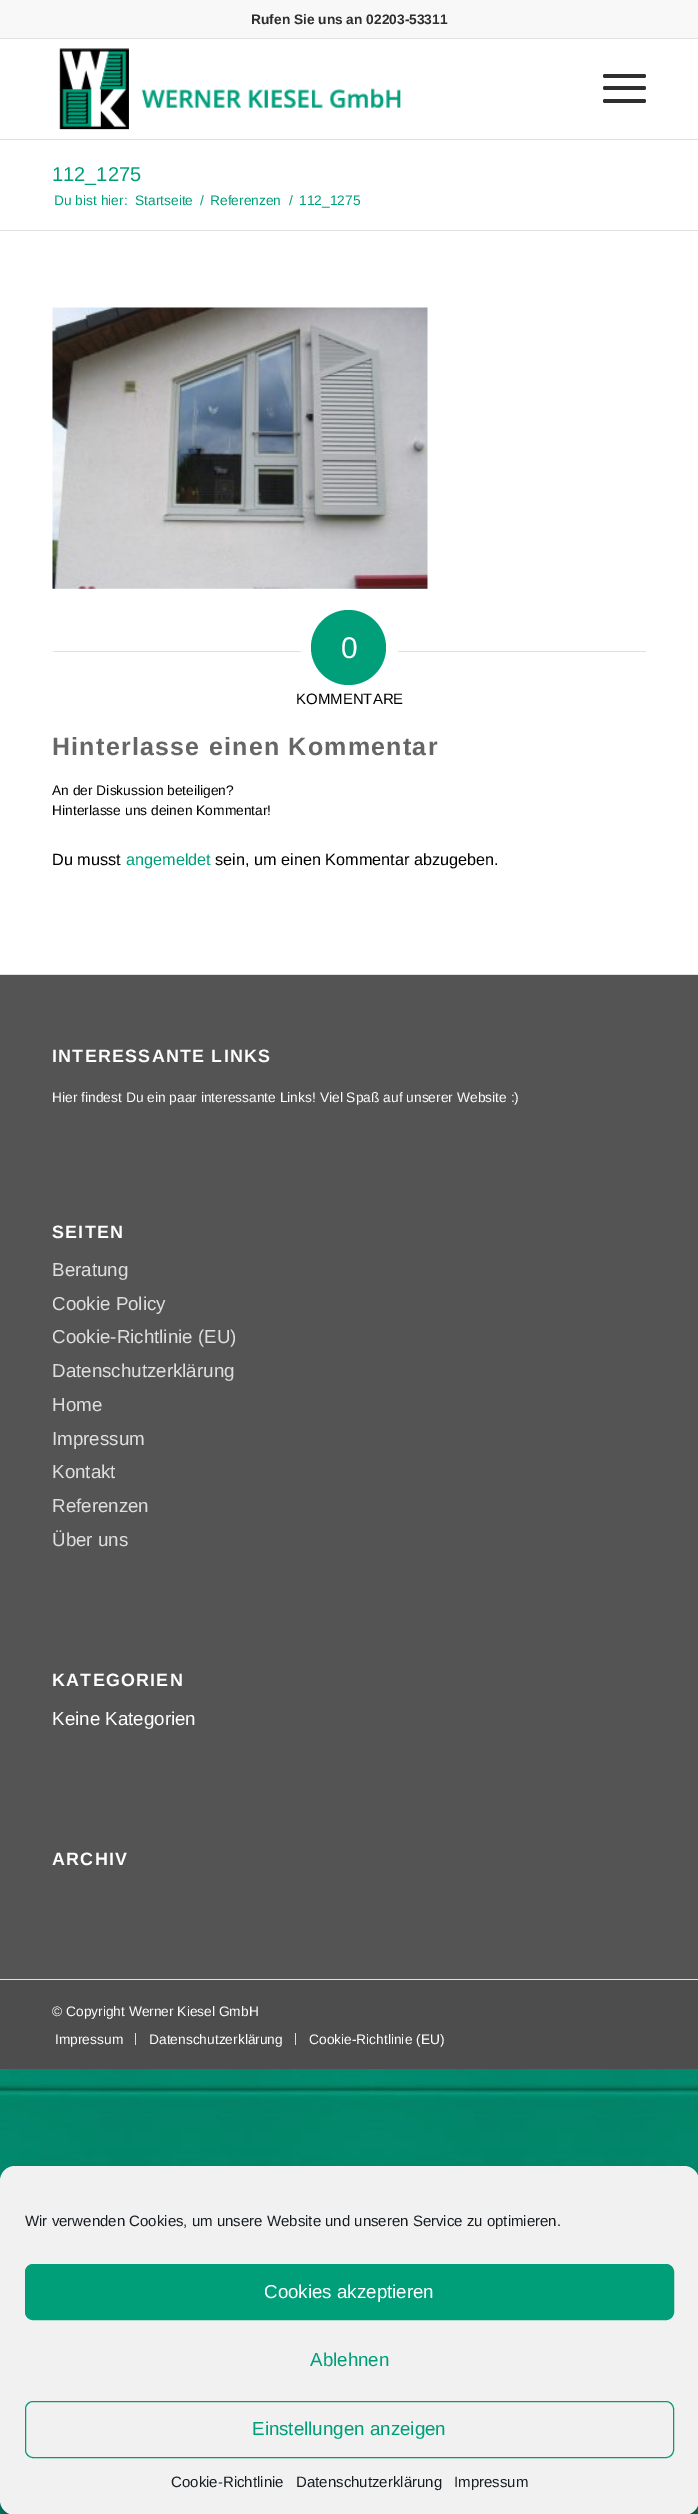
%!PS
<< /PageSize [698 2514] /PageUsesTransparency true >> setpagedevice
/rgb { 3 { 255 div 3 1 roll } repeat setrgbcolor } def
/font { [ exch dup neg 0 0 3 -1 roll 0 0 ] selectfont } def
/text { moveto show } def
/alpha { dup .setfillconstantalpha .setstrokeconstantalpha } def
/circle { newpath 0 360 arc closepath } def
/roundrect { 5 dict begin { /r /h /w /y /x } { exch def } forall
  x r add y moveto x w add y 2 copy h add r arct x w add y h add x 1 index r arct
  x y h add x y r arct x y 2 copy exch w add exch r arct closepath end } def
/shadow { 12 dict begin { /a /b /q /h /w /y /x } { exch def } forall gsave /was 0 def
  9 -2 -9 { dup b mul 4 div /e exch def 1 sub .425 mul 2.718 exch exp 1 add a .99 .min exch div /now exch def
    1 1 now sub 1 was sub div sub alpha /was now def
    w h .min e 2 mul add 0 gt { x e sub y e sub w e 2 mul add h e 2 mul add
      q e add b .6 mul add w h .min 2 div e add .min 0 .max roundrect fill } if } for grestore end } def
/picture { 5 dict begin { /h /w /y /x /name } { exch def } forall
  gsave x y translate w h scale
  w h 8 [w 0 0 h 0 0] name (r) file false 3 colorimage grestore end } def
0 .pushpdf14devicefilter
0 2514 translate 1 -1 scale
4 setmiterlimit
255 255 255 rgb
0 0 698 2514 rectfill
(img_01.rgb) 0 2069 698 445 picture
248 248 248 rgb
0 0 698 38 rectfill
225 225 225 rgb
0 38 698 1 rectfill
0 139 698 1 rectfill
(img_02.rgb) 59 48 342 82 picture
46 46 46 rgb
603 86 43 4 2 roundrect fill
603 74 43 4 2 roundrect fill
603 99 43 4 2 roundrect fill
225 225 225 rgb
0 230 698 1 rectfill
(img_03.rgb) 52 307 376 282 picture
53 651 248 1 rectfill
0 158 121 rgb
348.5 647.5 37.5 circle fill
225 225 225 rgb
398 651 248 1 rectfill
84 84 84 rgb
0 975 698 1004 rectfill
225 225 225 rgb
0 974 698 1 rectfill
77 77 77 rgb
0 1980 698 89 rectfill
225 225 225 rgb
0 1979 698 1 rectfill
135 2033 1 12 rectfill
295 2033 1 12 rectfill
0 0 0 rgb
0 2174 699 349 15 4 0.23 shadow
0 2179 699 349 15 12.5 0.19 shadow
241 241 241 rgb
0 2166 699 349 15 roundrect fill
0 158 121 rgb
25.5 2264.5 648 55 7.5 roundrect gsave fill grestore
stroke
25.5 2401.5 648 56 7.5 roundrect stroke
/LiberationSans-Bold 13.75 font
46 46 46 rgb
(Rufen Sie uns an 02203-53311) 251 24 text
/LiberationSans-Regular 20 font
0 158 121 rgb
(112_1275) 52 181 text
/LiberationSans-Regular 13.75 font
(Du bist hier:) 54 205 text
(Startseite) 135 205 text
(/) 200 205 text
(Referenzen) 210 205 text
(/) 289 205 text
(112_1275) 299 205 text
/LiberationSans-Regular 30 font
255 255 255 rgb
(0) 341 658 text
/LiberationSans-Regular 15 font
0 0 0 rgb
(KOMMENTARE) 296 704 text
/LiberationSans-Bold 25 font
102 102 102 rgb
52 755 moveto 1.25 0 (Hinterlasse einen Kommentar) ashow
/LiberationSans-Regular 13.8 font
0 0 0 rgb
(An der Diskussion beteiligen?) 52 795 text
(Hinterlasse uns deinen Kommentar!) 52 815 text
/LiberationSans-Regular 16.25 font
(Du musst) 52 865 text
0 158 121 rgb
(angemeldet) 126 865 text
0 0 0 rgb
(sein, um einen Kommentar abzugeben.) 215 865 text
/LiberationSans-Bold 17.9 font
255 255 255 rgb
52 1062 moveto 1.25 0 (INTERESSANTE LINKS) ashow
/LiberationSans-Regular 13.8 font
(Hier findest Du ein paar interessante Links! Viel Spaß auf unserer Website :\)) 52 1102 text
/LiberationSans-Bold 17.9 font
52 1238 moveto 1.25 0 (SEITEN) ashow
/LiberationSans-Regular 18.75 font
222 222 222 rgb
(Beratung) 52 1276 text
(Cookie Policy) 52 1310 text
(Cookie-Richtlinie \(EU\)) 52 1343 text
(Datenschutzerklärung) 52 1377 text
(Home) 52 1411 text
(Impressum) 52 1445 text
(Kontakt) 52 1478 text
(Referenzen) 52 1512 text
(Über uns) 52 1546 text
/LiberationSans-Bold 17.9 font
255 255 255 rgb
52 1686 moveto 1.25 0 (KATEGORIEN) ashow
/LiberationSans-Regular 18.75 font
(Keine Kategorien) 52 1725 text
/LiberationSans-Bold 17.9 font
52 1865 moveto 1.25 0 (ARCHIV) ashow
/LiberationSans-Regular 13.75 font
(© Copyright Werner Kiesel GmbH) 52 2016 text
(Impressum) 55 2044 text
(Datenschutzerklärung) 149 2044 text
(Cookie-Richtlinie \(EU\)) 309 2044 text
/LiberationSans-Regular 15 font
25 30 35 rgb
(Wir verwenden Cookies, um unsere Website und unseren Service zu optimieren.) 25 2226 text
/LiberationSans-Regular 18.75 font
255 255 255 rgb
(Cookies akzeptieren) 264 2298 text
0 158 121 rgb
(Ablehnen) 310 2366 text
(Einstellungen anzeigen) 252 2435 text
/LiberationSans-Regular 15 font
25 30 35 rgb
(Cookie-Richtlinie) 171 2487 text
(Datenschutzerklärung) 296 2487 text
(Impressum) 454 2487 text
.poppdf14devicefilter showpage
